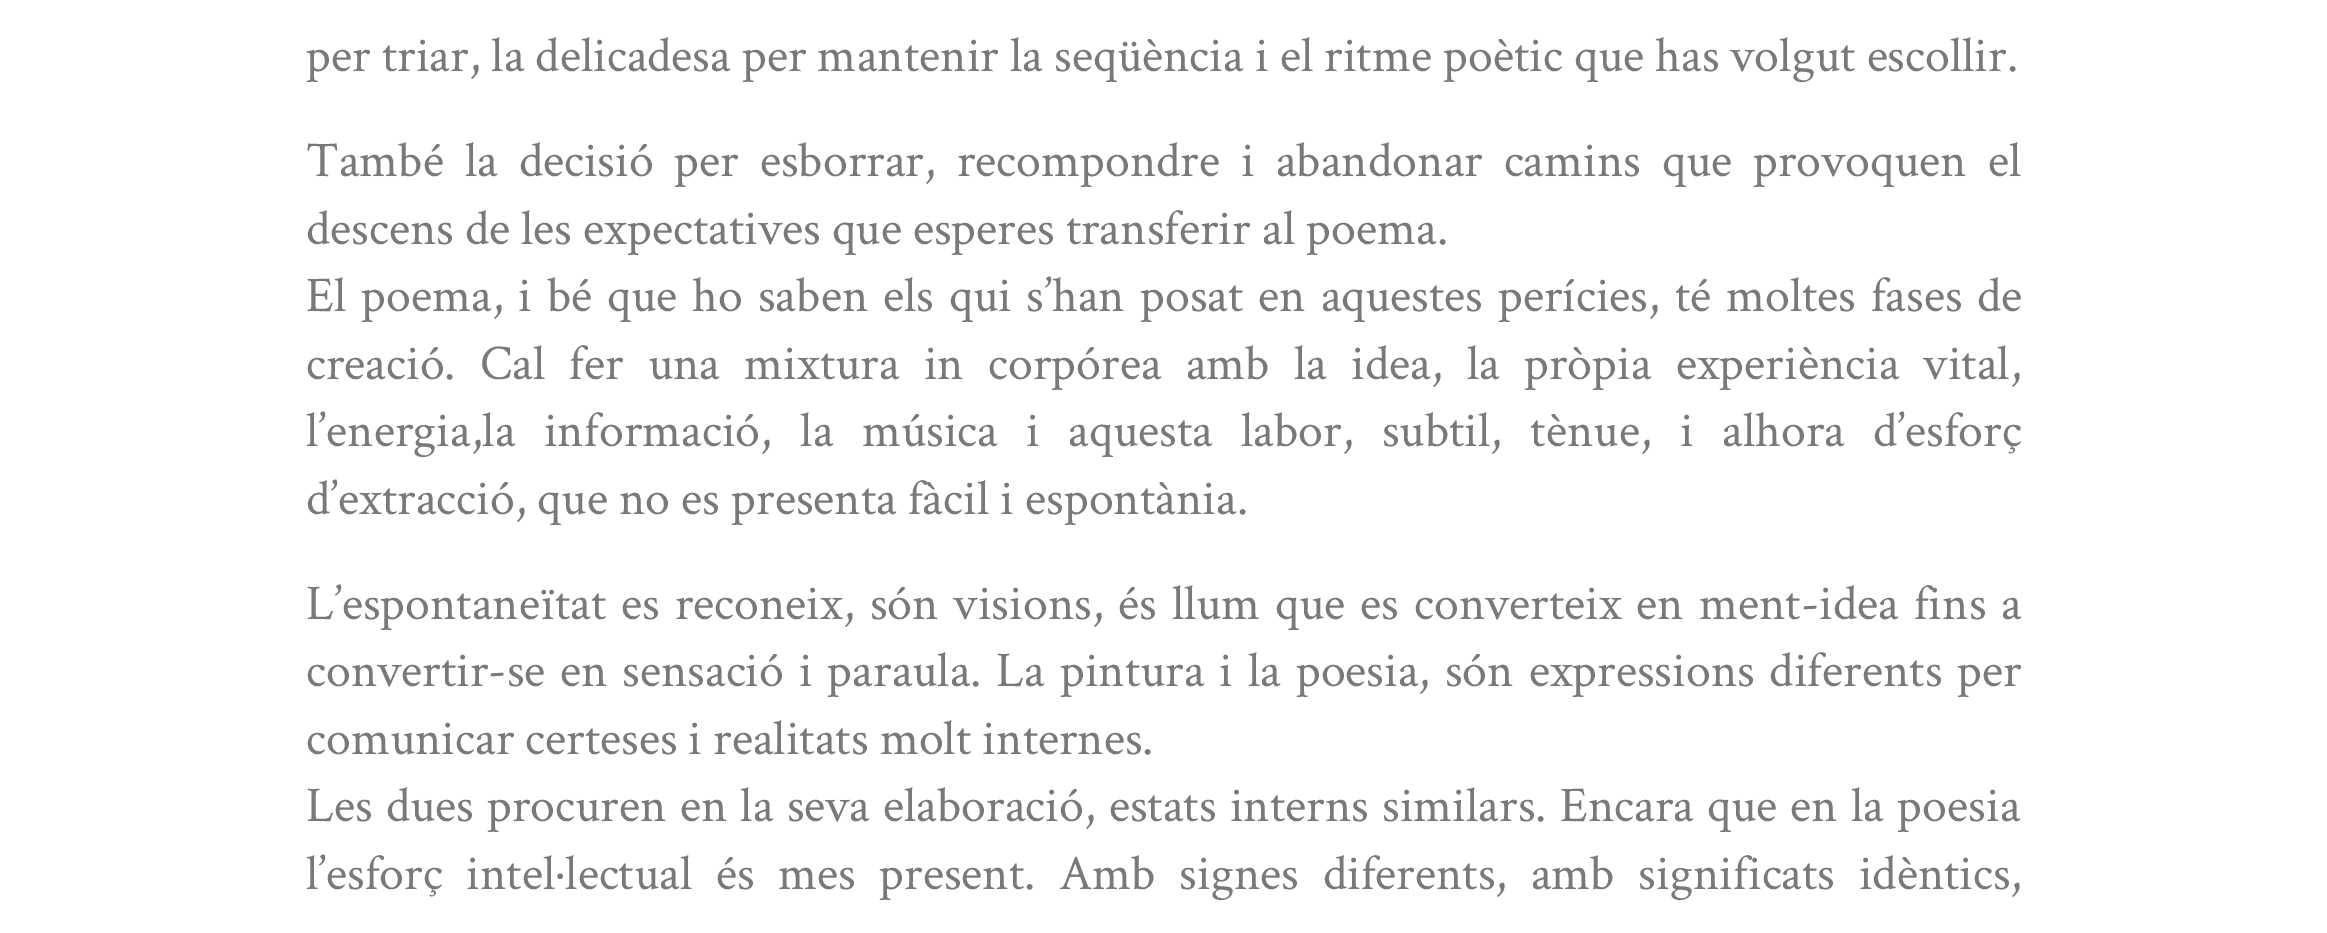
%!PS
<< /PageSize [2327 933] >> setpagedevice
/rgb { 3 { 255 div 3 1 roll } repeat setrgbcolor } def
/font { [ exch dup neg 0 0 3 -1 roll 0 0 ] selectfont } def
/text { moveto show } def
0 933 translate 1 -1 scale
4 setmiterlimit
255 255 255 rgb
0 0 2327 933 rectfill
/CrimsonText-Regular 50 font
121 121 121 rgb
(per triar, la delicadesa per mantenir la seqüència i el ritme poètic que has volgut escollir.) 306 71 text
306 176 moveto 9.75 0 32 (També la decisió per esborrar, recompondre i abandonar camins que provoquen el) widthshow
(descens de les expectatives que esperes transferir al poema.) 306 244 text
306 311 moveto 3.75 0 32 (El poema, i bé que ho saben els qui s’han posat en aquestes perícies, té moltes fases de) widthshow
306 379 moveto 13 0 32 (creació. Cal fer una mixtura in corpórea amb la idea, la pròpia experiència vital,) widthshow
306 446 moveto 17.25 0 32 (l’energia,la informació, la música i aquesta labor, subtil, tènue, i alhora d’esforç) widthshow
(d’extracció, que no es presenta fàcil i espontània.) 306 514 text
306 619 moveto 3.75 0 32 (L’espontaneïtat es reconeix, són visions, és llum que es converteix en ment-idea fins a) widthshow
306 686 moveto 3.6 0 32 (convertir-se en sensació i paraula. La pintura i la poesia, són expressions diferents per) widthshow
(comunicar certeses i realitats molt internes.) 306 754 text
306 821 moveto 2.1 0 32 (Les dues procuren en la seva elaboració, estats interns similars. Encara que en la poesia) widthshow
306 889 moveto 12.5 0 32 (l’esforç intel·lectual és mes present. Amb signes diferents, amb significats idèntics,) widthshow
showpage
